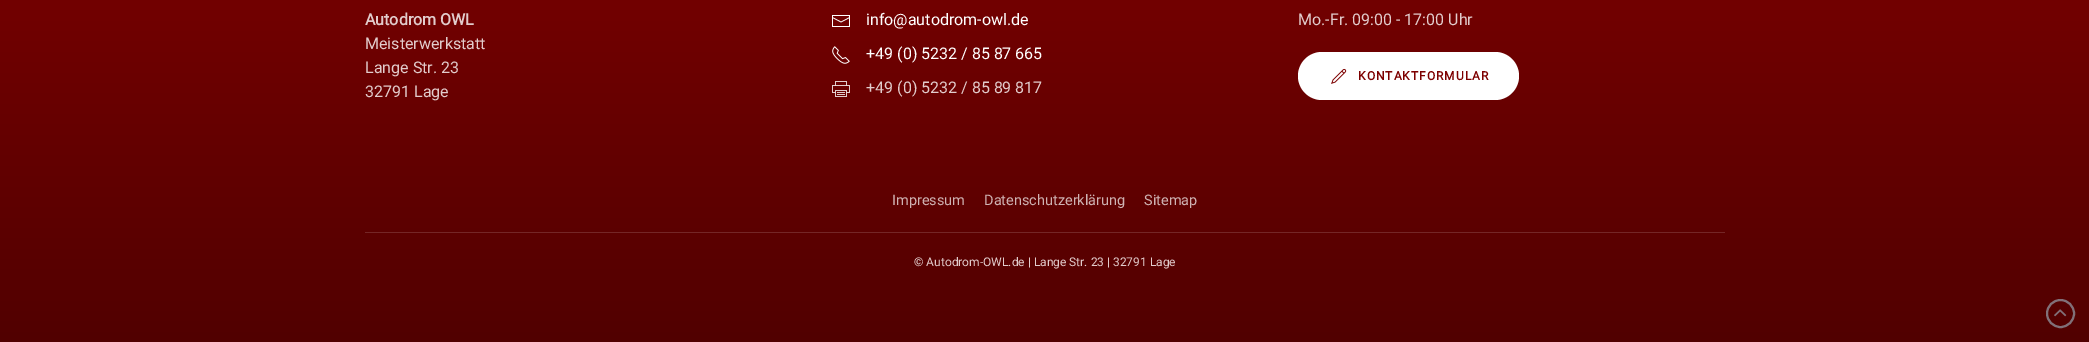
%!PS
<< /PageSize [2089 342] /PageUsesTransparency true >> setpagedevice
/rgb { 3 { 255 div 3 1 roll } repeat setrgbcolor } def
/font { [ exch dup neg 0 0 3 -1 roll 0 0 ] selectfont } def
/text { moveto show } def
/alpha { dup .setfillconstantalpha .setstrokeconstantalpha } def
/circle { newpath 0 360 arc closepath } def
/roundrect { 5 dict begin { /r /h /w /y /x } { exch def } forall
  x r add y moveto x w add y 2 copy h add r arct x w add y h add x 1 index r arct
  x y h add x y r arct x y 2 copy exch w add exch r arct closepath end } def
/picture { 5 dict begin { /h /w /y /x /name } { exch def } forall
  gsave x y translate w h scale
  w h 8 [w 0 0 h 0 0] name (r) file false 3 colorimage grestore end } def
0 .pushpdf14devicefilter
0 342 translate 1 -1 scale
4 setmiterlimit
255 255 255 rgb
0 0 2089 342 rectfill
gsave 0 0 moveto 2089 0 rlineto 0 342 rlineto -2089 0 rlineto closepath clip newpath
<< /ShadingType 2 /ColorSpace /DeviceRGB /Coords [1045 -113 1045 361] /Extend [true true] /Function << /FunctionType 2 /Domain [0 1] /C0 [0.49 0 0] /C1 [0.31 0 0] /N 1 >> >> shfill grestore
(img_01.rgb) 832 15 18 12 picture
(img_02.rgb) 832 46 18 18 picture
(img_03.rgb) 832 81 18 16 picture
1298 52 221 48 24 roundrect fill
(img_04.rgb) 1331 68 16 16 picture
116 38 38 rgb
365 232 1360 1 rectfill
0.8 alpha
140 140 150 rgb
2 setlinewidth
2060.5 313.5 13.5 circle stroke
1 alpha
(img_05.rgb) 2054 309 13 8 picture
/Roboto-Bold 16 font
226 204 204 rgb
(Autodrom OWL) 365 25 text
/Roboto-Regular 16 font
(Meisterwerkstatt) 365 49 text
(Lange Str. 23) 365 73 text
(32791 Lage) 365 97 text
255 255 255 rgb
(info@autodrom-owl.de) 866 25 text
(+49 \(0\) 5232 / 85 87 665) 866 59 text
226 204 204 rgb
(+49 \(0\) 5232 / 85 89 817) 866 93 text
(Mo.-Fr. 09:00 - 17:00 Uhr) 1298 25 text
/Roboto-Bold 12 font
125 0 0 rgb
1358 80 moveto 1 0 (KONTAKTFORMULAR) ashow
/Roboto-Regular 14.5 font
207 179 179 rgb
(Impressum) 892 205 text
(Datenschutzerklärung) 984 205 text
(Sitemap) 1144 205 text
/Roboto-Regular 12 font
226 204 204 rgb
(© Autodrom-OWL.de | Lange Str. 23 | 32791 Lage) 914 266 text
.poppdf14devicefilter showpage
